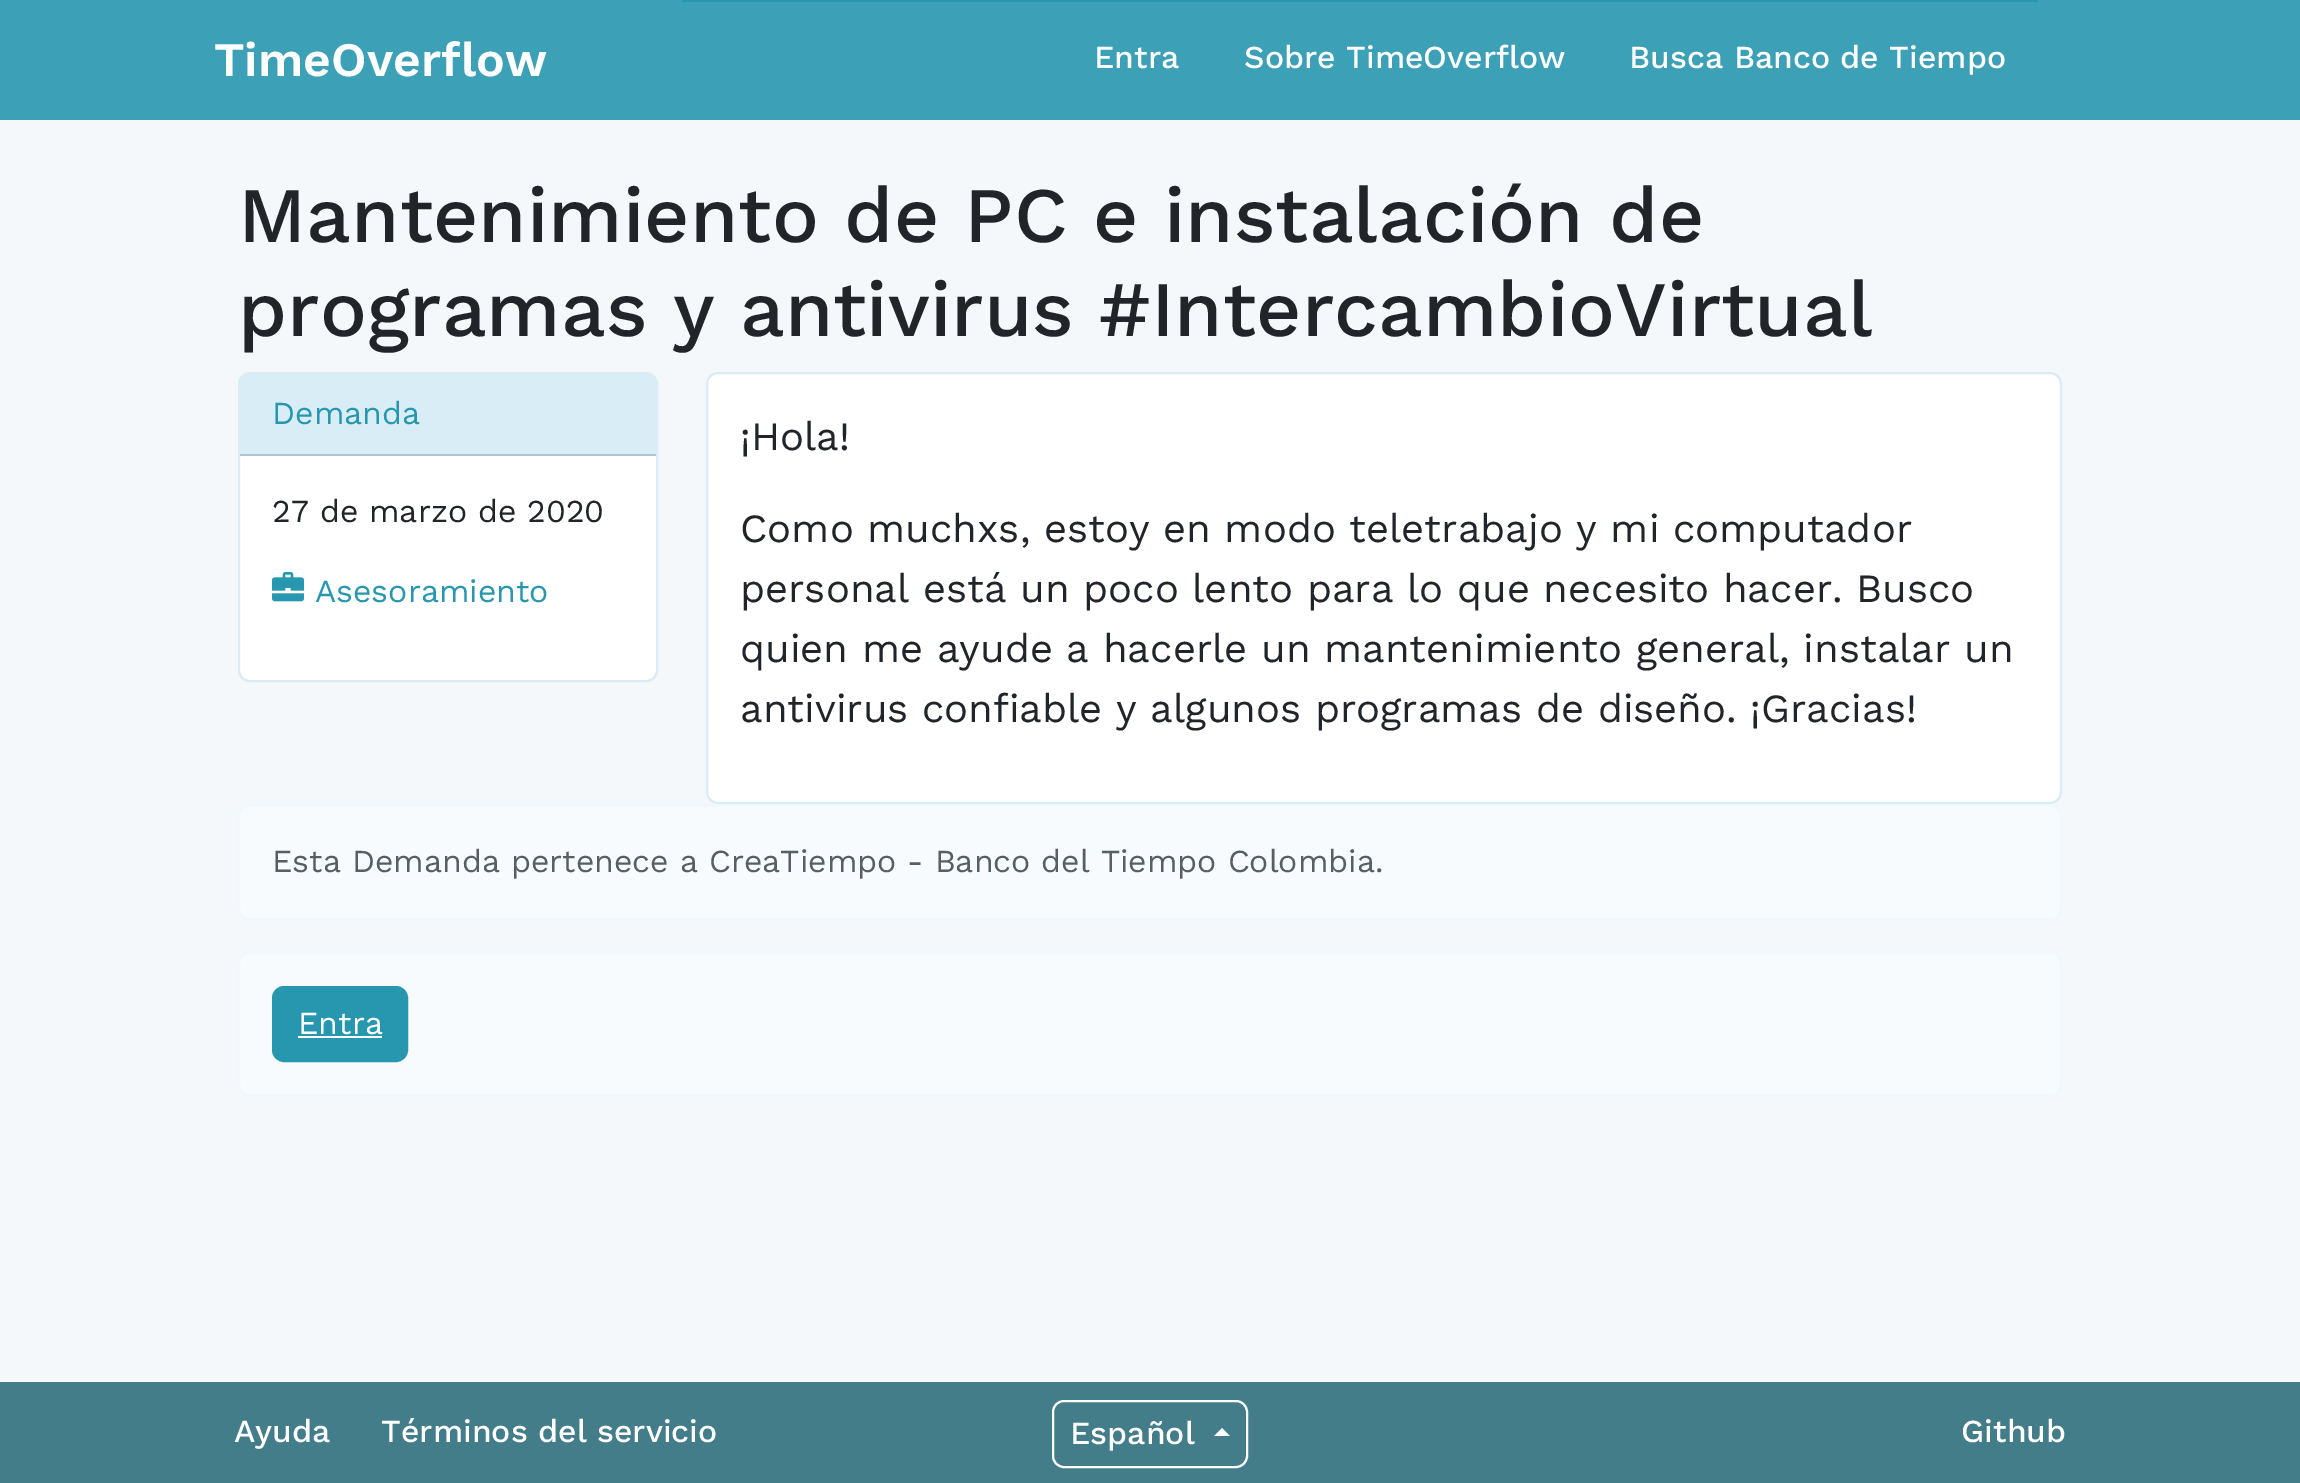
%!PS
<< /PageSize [2300 1483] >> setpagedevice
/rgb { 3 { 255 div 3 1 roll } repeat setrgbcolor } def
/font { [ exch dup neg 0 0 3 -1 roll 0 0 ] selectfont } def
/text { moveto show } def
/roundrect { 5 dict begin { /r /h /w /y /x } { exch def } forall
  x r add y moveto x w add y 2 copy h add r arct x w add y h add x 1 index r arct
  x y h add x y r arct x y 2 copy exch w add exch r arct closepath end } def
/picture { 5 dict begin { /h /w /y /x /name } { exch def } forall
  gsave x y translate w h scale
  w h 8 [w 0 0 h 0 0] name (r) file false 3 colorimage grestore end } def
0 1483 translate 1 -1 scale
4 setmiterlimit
245 248 250 rgb
0 0 2300 1483 rectfill
60 161 182 rgb
0 0 2300 120 rectfill
39 151 175 rgb
682 0 1356 2 rectfill
255 255 255 rgb
239 373 418 308 11 roundrect gsave fill grestore
217 237 247 rgb
2 setlinewidth
stroke
250 374 moveto 396 0 rlineto 5.5 0 10 4.5 10 10 rcurveto 0 72 rlineto -416 0 rlineto 0 -72 rlineto 0 -5.5 4.5 -10 10 -10 rcurveto closepath fill
179 195 204 rgb
240 454 416 2 rectfill
(img_01.rgb) 272 572 32 30 picture
255 255 255 rgb
707 373 1354 430 11 roundrect gsave fill grestore
217 237 247 rgb
stroke
247 251 253 rgb
239 805 1822 114 11 roundrect gsave fill grestore
240 248 252 rgb
stroke
247 251 253 rgb
239 953 1822 142 11 roundrect gsave fill grestore
240 248 252 rgb
stroke
39 151 175 rgb
273 987 134 74 11 roundrect gsave fill grestore
stroke
255 255 255 rgb
298 1036 84 2 rectfill
66 125 137 rgb
0 1382 2300 101 rectfill
255 255 255 rgb
1053 1401 194 66 11 roundrect stroke
1230 1436 moveto -16 0 rlineto 8 -8 rlineto closepath fill
/WorkSans-SemiBold 48 font
(TimeOverflow) 214 76 text
/WorkSans-Medium 32 font
(Entra) 1094 68 text
(Sobre TimeOverflow) 1244 68 text
(Busca Banco de Tiempo) 1629 68 text
/WorkSans-Medium 78.5 font
33 37 41 rgb
(Mantenimiento de PC e instalación de) 238 242 text
(programas y antivirus #IntercambioVirtual) 238 336 text
/WorkSans-Regular 32 font
39 151 175 rgb
(Demanda) 272 424 text
33 37 41 rgb
(27 de marzo de 2020) 272 522 text
39 151 175 rgb
(Asesoramiento) 315 602 text
/WorkSans-Regular 40 font
33 37 41 rgb
(¡Hola!) 740 450 text
(Como muchxs, estoy en modo teletrabajo y mi computador) 740 542 text
(personal está un poco lento para lo que necesito hacer. Busco) 740 602 text
(quien me ayude a hacerle un mantenimiento general, instalar un) 740 662 text
(antivirus confiable y algunos programas de diseño. ¡Gracias!) 740 722 text
/WorkSans-Regular 32 font
87 95 99 rgb
(Esta Demanda pertenece a CreaTiempo - Banco del Tiempo Colombia.) 272 872 text
255 255 255 rgb
(Entra) 298 1034 text
/WorkSans-Medium 32 font
(Ayuda) 234 1442 text
(Términos del servicio) 381 1442 text
(Español) 1070 1444 text
(Github) 1961 1442 text
showpage
